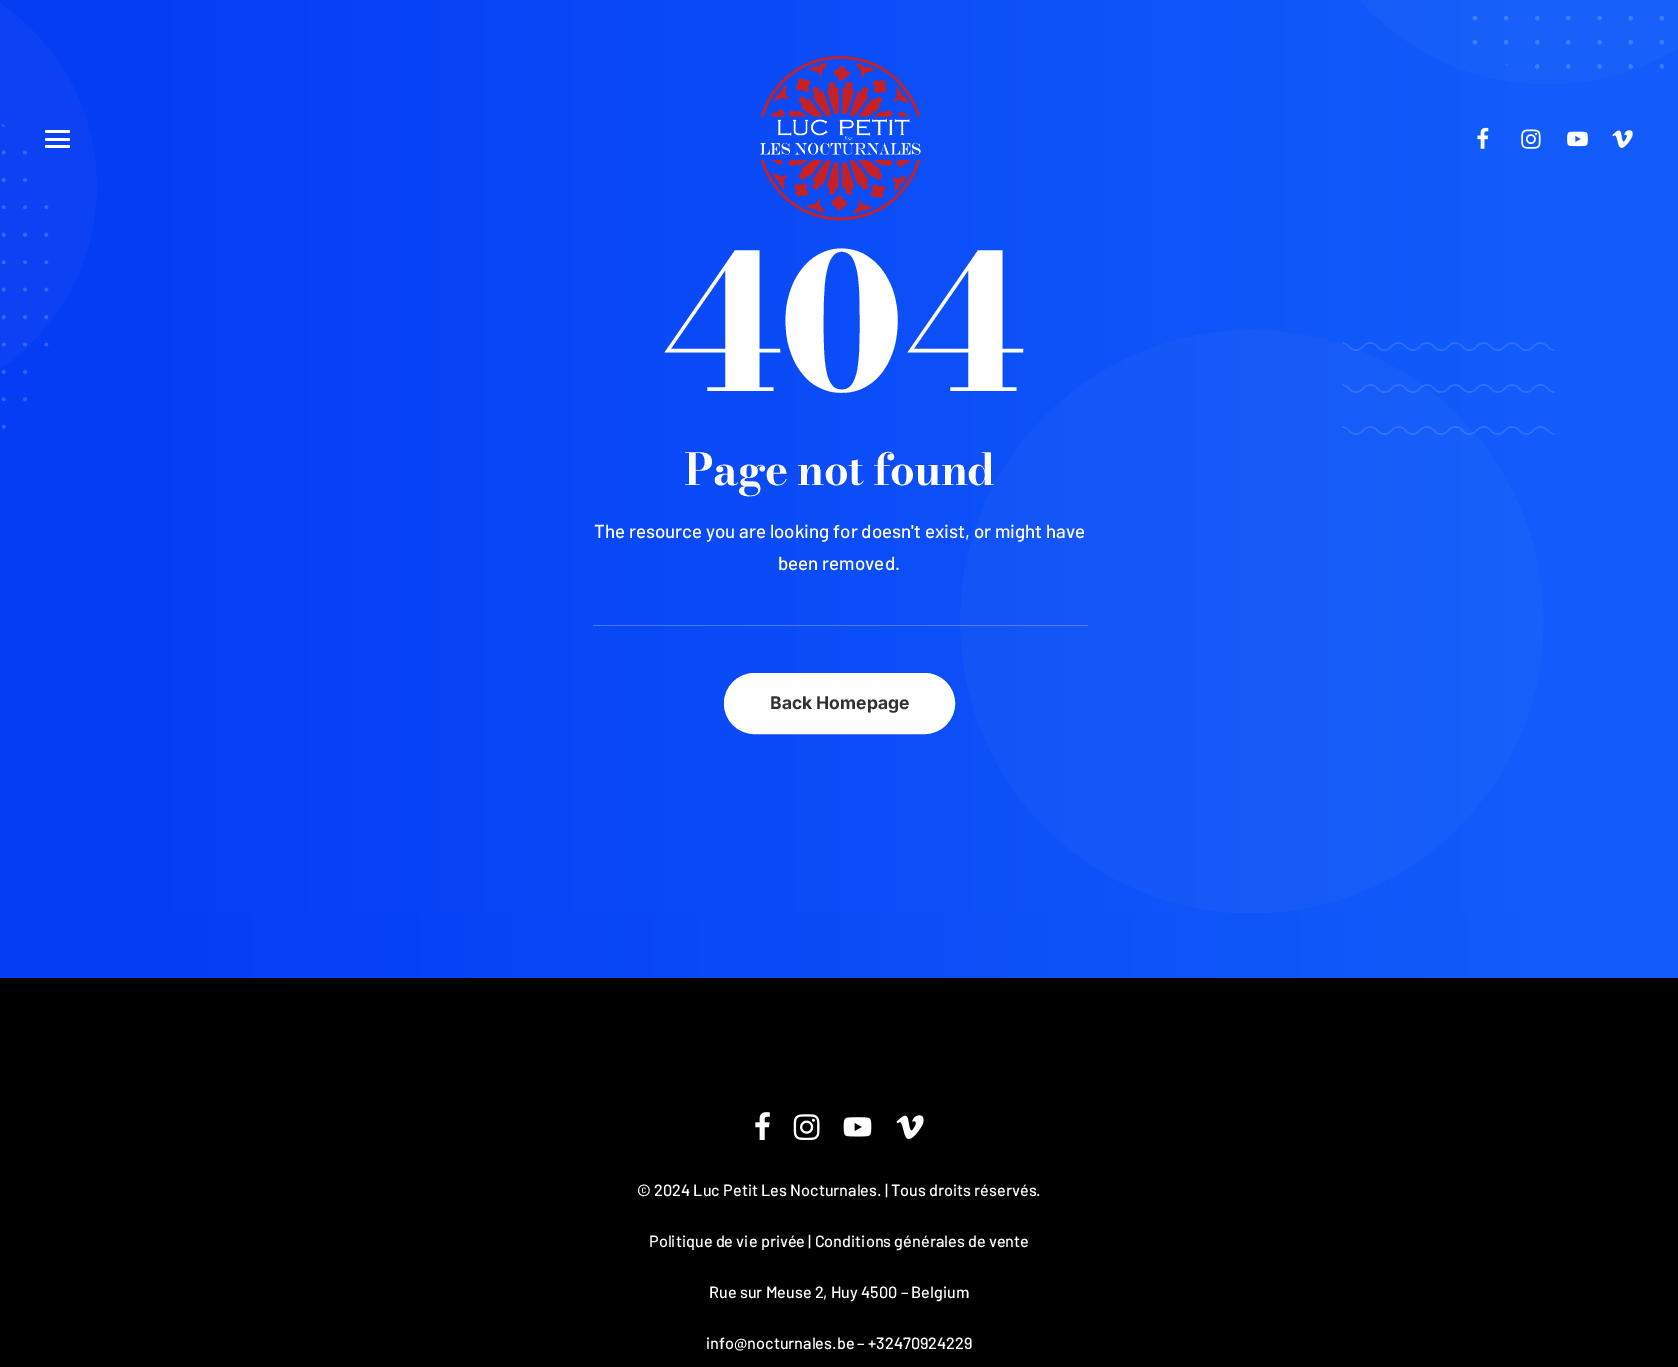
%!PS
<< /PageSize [1678 1367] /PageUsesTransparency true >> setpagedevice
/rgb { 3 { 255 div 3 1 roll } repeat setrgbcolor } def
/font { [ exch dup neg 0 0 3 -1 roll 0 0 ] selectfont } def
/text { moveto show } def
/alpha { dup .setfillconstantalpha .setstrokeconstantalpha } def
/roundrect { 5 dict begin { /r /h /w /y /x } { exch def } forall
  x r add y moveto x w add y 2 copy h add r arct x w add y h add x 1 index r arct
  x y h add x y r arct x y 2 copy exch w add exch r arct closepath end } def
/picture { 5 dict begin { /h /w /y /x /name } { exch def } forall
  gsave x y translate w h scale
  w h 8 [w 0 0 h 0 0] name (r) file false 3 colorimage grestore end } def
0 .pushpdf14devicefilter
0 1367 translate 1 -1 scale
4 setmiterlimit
255 255 255 rgb
0 0 1678 1367 rectfill
gsave 0 0 moveto 1678 0 rlineto 0 978 rlineto -1678 0 rlineto closepath clip newpath
<< /ShadingType 2 /ColorSpace /DeviceRGB /Coords [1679 489 0 489] /Extend [true true] /Function << /FunctionType 3 /Domain [0 1] /Functions [<< /FunctionType 2 /Domain [0 1] /C0 [0.067 0.361 0.98] /C1 [0.067 0.361 0.98] /N 1 >> << /FunctionType 2 /Domain [0 1] /C0 [0.067 0.361 0.98] /C1 [0.02 0.239 0.961] /N 1 >> << /FunctionType 2 /Domain [0 1] /C0 [0.02 0.239 0.961] /C1 [0.02 0.239 0.961] /N 1 >>] /Bounds [0.09 0.91] /Encode [0 1 0 1 0 1] >> >> shfill grestore
(img_06.rgb) 0 0 1678 913 picture
45 138 25 3 1.5 roundrect fill
45 130 25 3 1.5 roundrect fill
45 145 25 3 1.5 roundrect fill
(img_01.rgb) 760 55 161 166 picture
(img_02.rgb) 1477 127 12 22 picture
(img_03.rgb) 1521 129 20 20 picture
(img_04.rgb) 1567 131 21 16 picture
(img_05.rgb) 1612 130 21 18 picture
0.25 alpha
593 625 495 1 rectfill
1 alpha
724.5 673.5 230 60 30 roundrect gsave fill grestore
stroke
0 0 0 rgb
0 978 1678 389 rectfill
(img_07.rgb) 755 1112 15 28 picture
(img_08.rgb) 793 1114 27 26 picture
(img_09.rgb) 843 1117 29 20 picture
(img_10.rgb) 896 1115 28 24 picture
/BodoniModa-ExtraBold 188 font
255 255 255 rgb
658 391 moveto -4 0 (404) ashow
/BodoniModa-Bold 43.75 font
684 485 moveto -0.9 0 (Page not found) ashow
/Barlow-Medium 18.75 font
(The resource you are looking for doesn't exist, or might have) 594 538 text
(been removed.) 778 570 text
/Inter-Bold 17.5 font
48 49 51 rgb
(Back Homepage) 770 709 text
/Barlow-Medium 16.25 font
255 255 255 rgb
(© 2024 Luc Petit Les Nocturnales. | Tous droits réservés.) 637 1196 text
(Politique de vie privée | Conditions générales de vente) 649 1247 text
(Rue sur Meuse 2, Huy 4500 – Belgium) 709 1298 text
(info@nocturnales.be – +32470924229) 706 1349 text
.poppdf14devicefilter showpage
